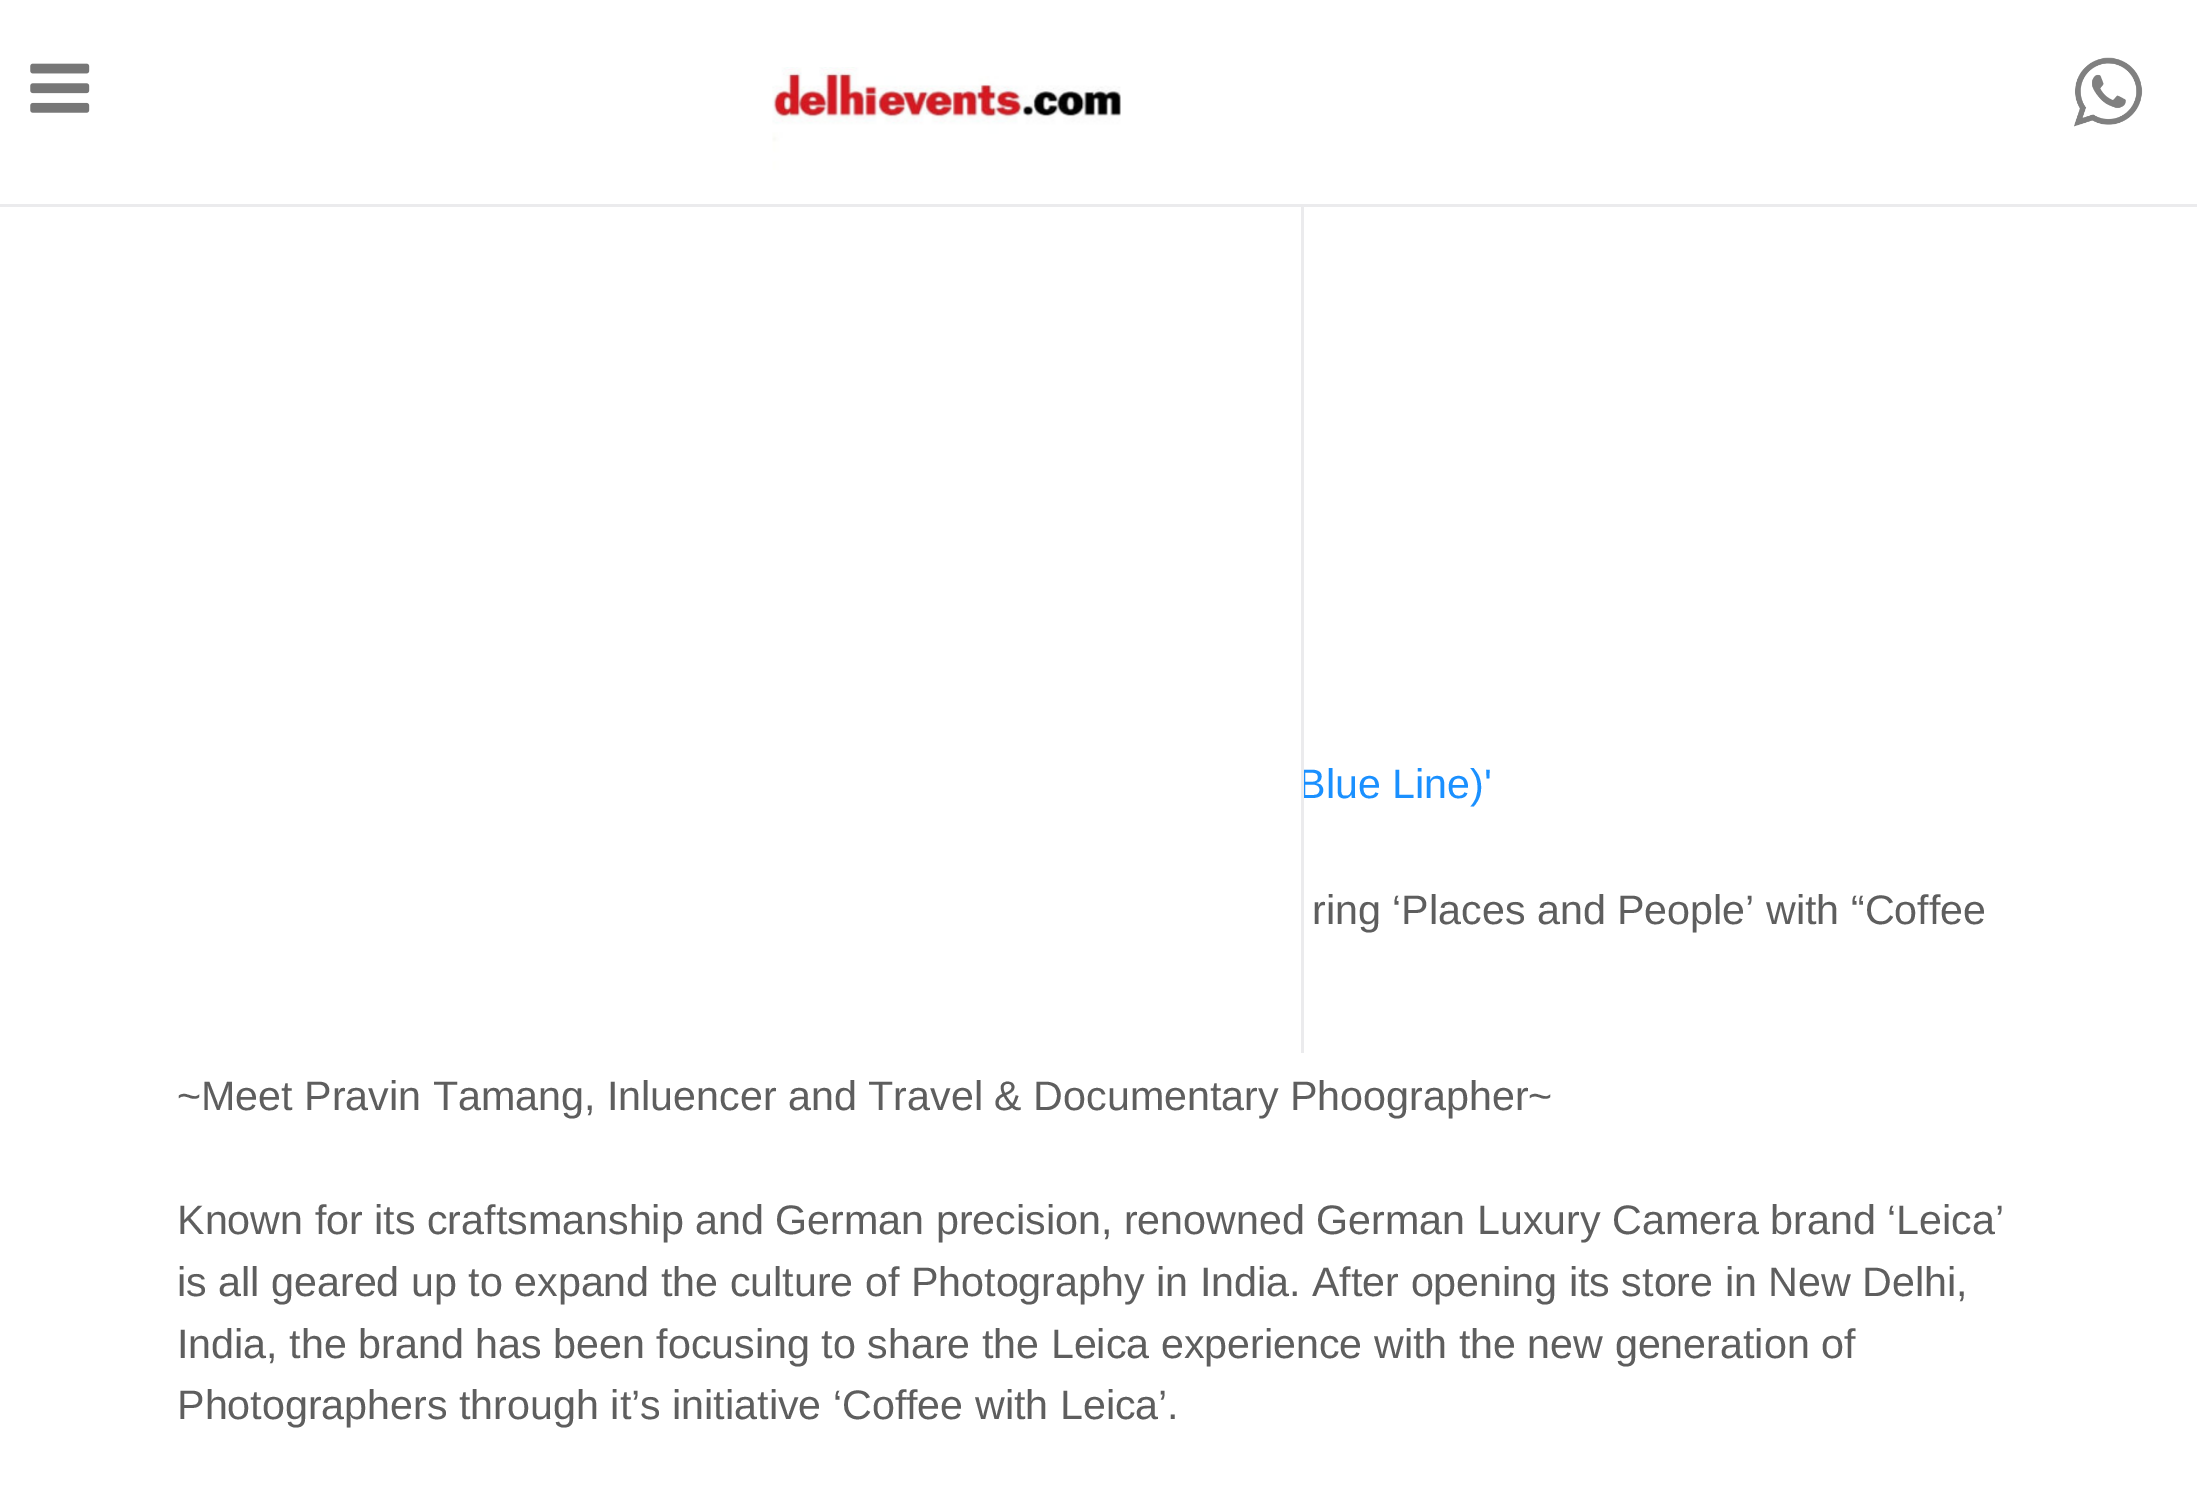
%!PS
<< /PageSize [2197 1509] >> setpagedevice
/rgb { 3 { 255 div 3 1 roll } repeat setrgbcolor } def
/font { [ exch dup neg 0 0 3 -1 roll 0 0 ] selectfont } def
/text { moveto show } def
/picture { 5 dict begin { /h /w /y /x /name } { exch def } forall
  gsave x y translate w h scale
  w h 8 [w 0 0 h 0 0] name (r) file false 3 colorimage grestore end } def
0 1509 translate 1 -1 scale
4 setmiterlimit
255 255 255 rgb
0 0 2197 1509 rectfill
235 235 237 rgb
0 204 2197 3 rectfill
(img_01.rgb) 30 63 60 50 picture
(img_02.rgb) 772 67 349 103 picture
(img_03.rgb) 2074 57 69 70 picture
/LiberationSans-Regular 41.25 font
26 144 255 rgb
(Blue Line\)') 1298 798 text
235 235 237 rgb
1301 207 3 846 rectfill
255 255 255 rgb
1300 769 1 29 rectfill
94 94 94 rgb
(ring ‘Places and People’ with “Coffee) 1312 924 text
(~Meet Pravin Tamang, Inluencer and Travel & Documentary Phoographer~) 177 1110 text
(Known for its craftsmanship and German precision, renowned German Luxury Camera brand ‘Leica’) 177 1234 text
(is all geared up to expand the culture of Photography in India. After opening its store in New Delhi,) 177 1296 text
(India, the brand has been focusing to share the Leica experience with the new generation of) 177 1358 text
(Photographers through it’s initiative ‘Coffee with Leica’.) 177 1419 text
showpage
